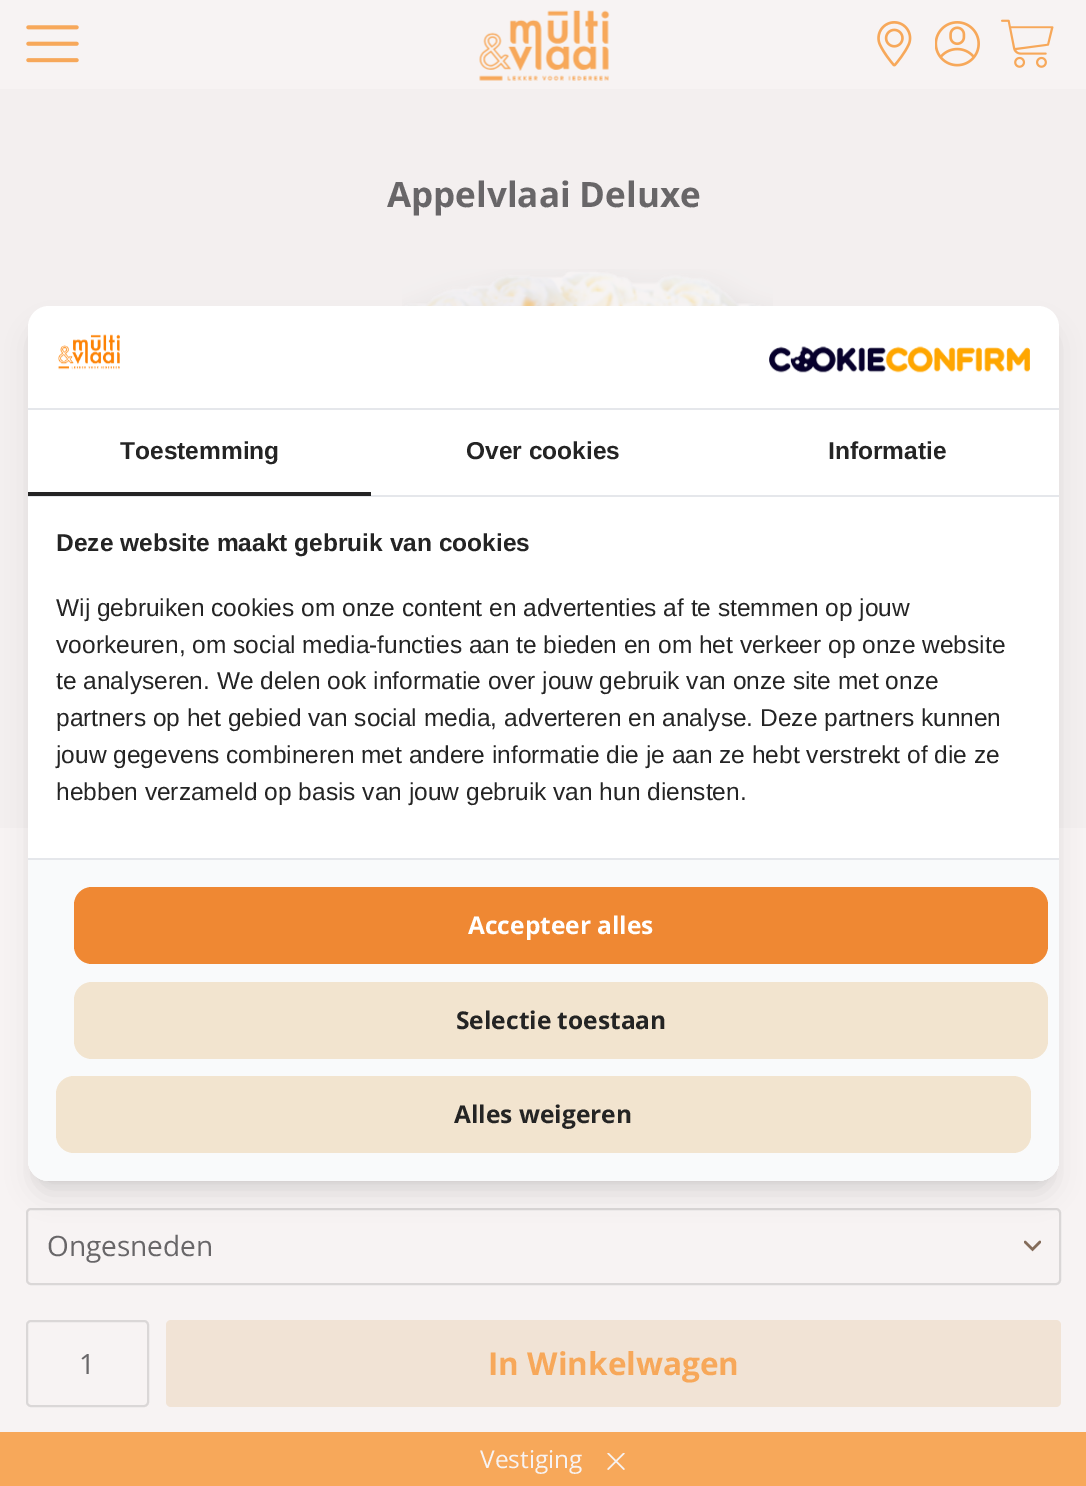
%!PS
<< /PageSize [1086 1486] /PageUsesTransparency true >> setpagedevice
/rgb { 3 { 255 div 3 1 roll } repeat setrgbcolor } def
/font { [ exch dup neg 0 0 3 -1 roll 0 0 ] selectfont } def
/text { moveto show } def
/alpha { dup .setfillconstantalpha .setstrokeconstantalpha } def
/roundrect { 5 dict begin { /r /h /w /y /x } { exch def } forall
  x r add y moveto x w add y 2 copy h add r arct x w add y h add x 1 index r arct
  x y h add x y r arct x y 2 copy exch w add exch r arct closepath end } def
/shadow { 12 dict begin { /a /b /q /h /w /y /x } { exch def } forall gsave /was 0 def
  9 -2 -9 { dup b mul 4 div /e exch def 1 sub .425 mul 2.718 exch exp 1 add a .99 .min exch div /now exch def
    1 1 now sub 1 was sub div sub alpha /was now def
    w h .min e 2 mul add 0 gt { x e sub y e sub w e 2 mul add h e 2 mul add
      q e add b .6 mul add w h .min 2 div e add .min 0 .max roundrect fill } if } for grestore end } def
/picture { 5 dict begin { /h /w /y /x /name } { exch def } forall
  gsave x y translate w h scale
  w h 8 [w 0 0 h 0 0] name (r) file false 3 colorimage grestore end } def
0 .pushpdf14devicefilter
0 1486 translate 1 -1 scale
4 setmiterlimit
247 243 243 rgb
0 0 1086 1486 rectfill
243 239 239 rgb
0 89 1086 739 rectfill
(img_01.rgb) 402 269 371 37 picture
(img_02.rgb) 1024 1240 17 12 picture
218 215 215 rgb
2 setlinewidth
27 1209 1033 75 4 roundrect stroke
27 1321 121 85 4 roundrect stroke
241 227 213 rgb
166 1320 895 87 5 roundrect fill
(img_03.rgb) 26 25 53 38 picture
(img_04.rgb) 479 10 131 71 picture
(img_05.rgb) 877 21 35 46 picture
(img_06.rgb) 935 21 45 46 picture
(img_07.rgb) 1001 19 53 49 picture
247 168 90 rgb
0 1432 1086 54 rectfill
(img_08.rgb) 607 1453 18 17 picture
0 0 0 rgb
35 320 1017 861 14 5 0.1 shadow
33 329 1021 865 16 13 0.1 shadow
255 255 255 rgb
28 306 1031 875 21 roundrect fill
229 231 235 rgb
28 408 1031 2 rectfill
(img_09.rgb) 58 334 62 36 picture
(img_10.rgb) 769 346 261 27 picture
28 495 1031 2 rectfill
36 36 36 rgb
28 492 343 4 rectfill
gsave
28 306 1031 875 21 roundrect clip newpath
255 255 255 rgb
14 809 1059 351 0 17.5 1 shadow
grestore
249 250 251 rgb
28 858 moveto 1031 0 rlineto 0 302 rlineto 0 11.5 -9.5 21 -21 21 rcurveto -989 0 rlineto -11.5 0 -21 -9.5 -21 -21 rcurveto closepath fill
229 231 235 rgb
28 858 1031 2 rectfill
239 136 51 rgb
74 887 974 77 18 roundrect fill
242 228 207 rgb
74 982 974 77 18 roundrect fill
56 1076 975 77 18 roundrect fill
/OpenSans-Bold 35 font
104 102 104 rgb
(Appelvlaai Deluxe) 387 207 text
/OpenSans-Regular 28 font
(Ongesneden) 47 1256 text
(1) 79 1374 text
/OpenSans-Bold 31.5 font
247 168 90 rgb
(In Winkelwagen) 488 1375 text
/OpenSans-Regular 24.5 font
247 243 243 rgb
(Vestiging) 480 1468 text
/LiberationSans-Bold 24.5 font
36 36 36 rgb
(Toestemming) 120 459 text
(Over cookies) 466 459 text
(Informatie) 828 459 text
(Deze website maakt gebruik van cookies) 56 551 text
/LiberationSans-Regular 24.5 font
(Wij gebruiken cookies om onze content en advertenties af te stemmen op jouw) 56 616 text
(voorkeuren, om social media-functies aan te bieden en om het verkeer op onze website) 56 653 text
(te analyseren. We delen ook informatie over jouw gebruik van onze site met onze) 56 689 text
(partners op het gebied van social media, adverteren en analyse. Deze partners kunnen) 56 726 text
(jouw gegevens combineren met andere informatie die je aan ze hebt verstrekt of die ze) 56 763 text
(hebben verzameld op basis van jouw gebruik van hun diensten.) 56 800 text
/OpenSans-Bold 24.5 font
255 255 255 rgb
(Accepteer alles) 468 934 text
36 36 36 rgb
(Selectie toestaan) 456 1029 text
(Alles weigeren) 454 1123 text
.poppdf14devicefilter showpage
